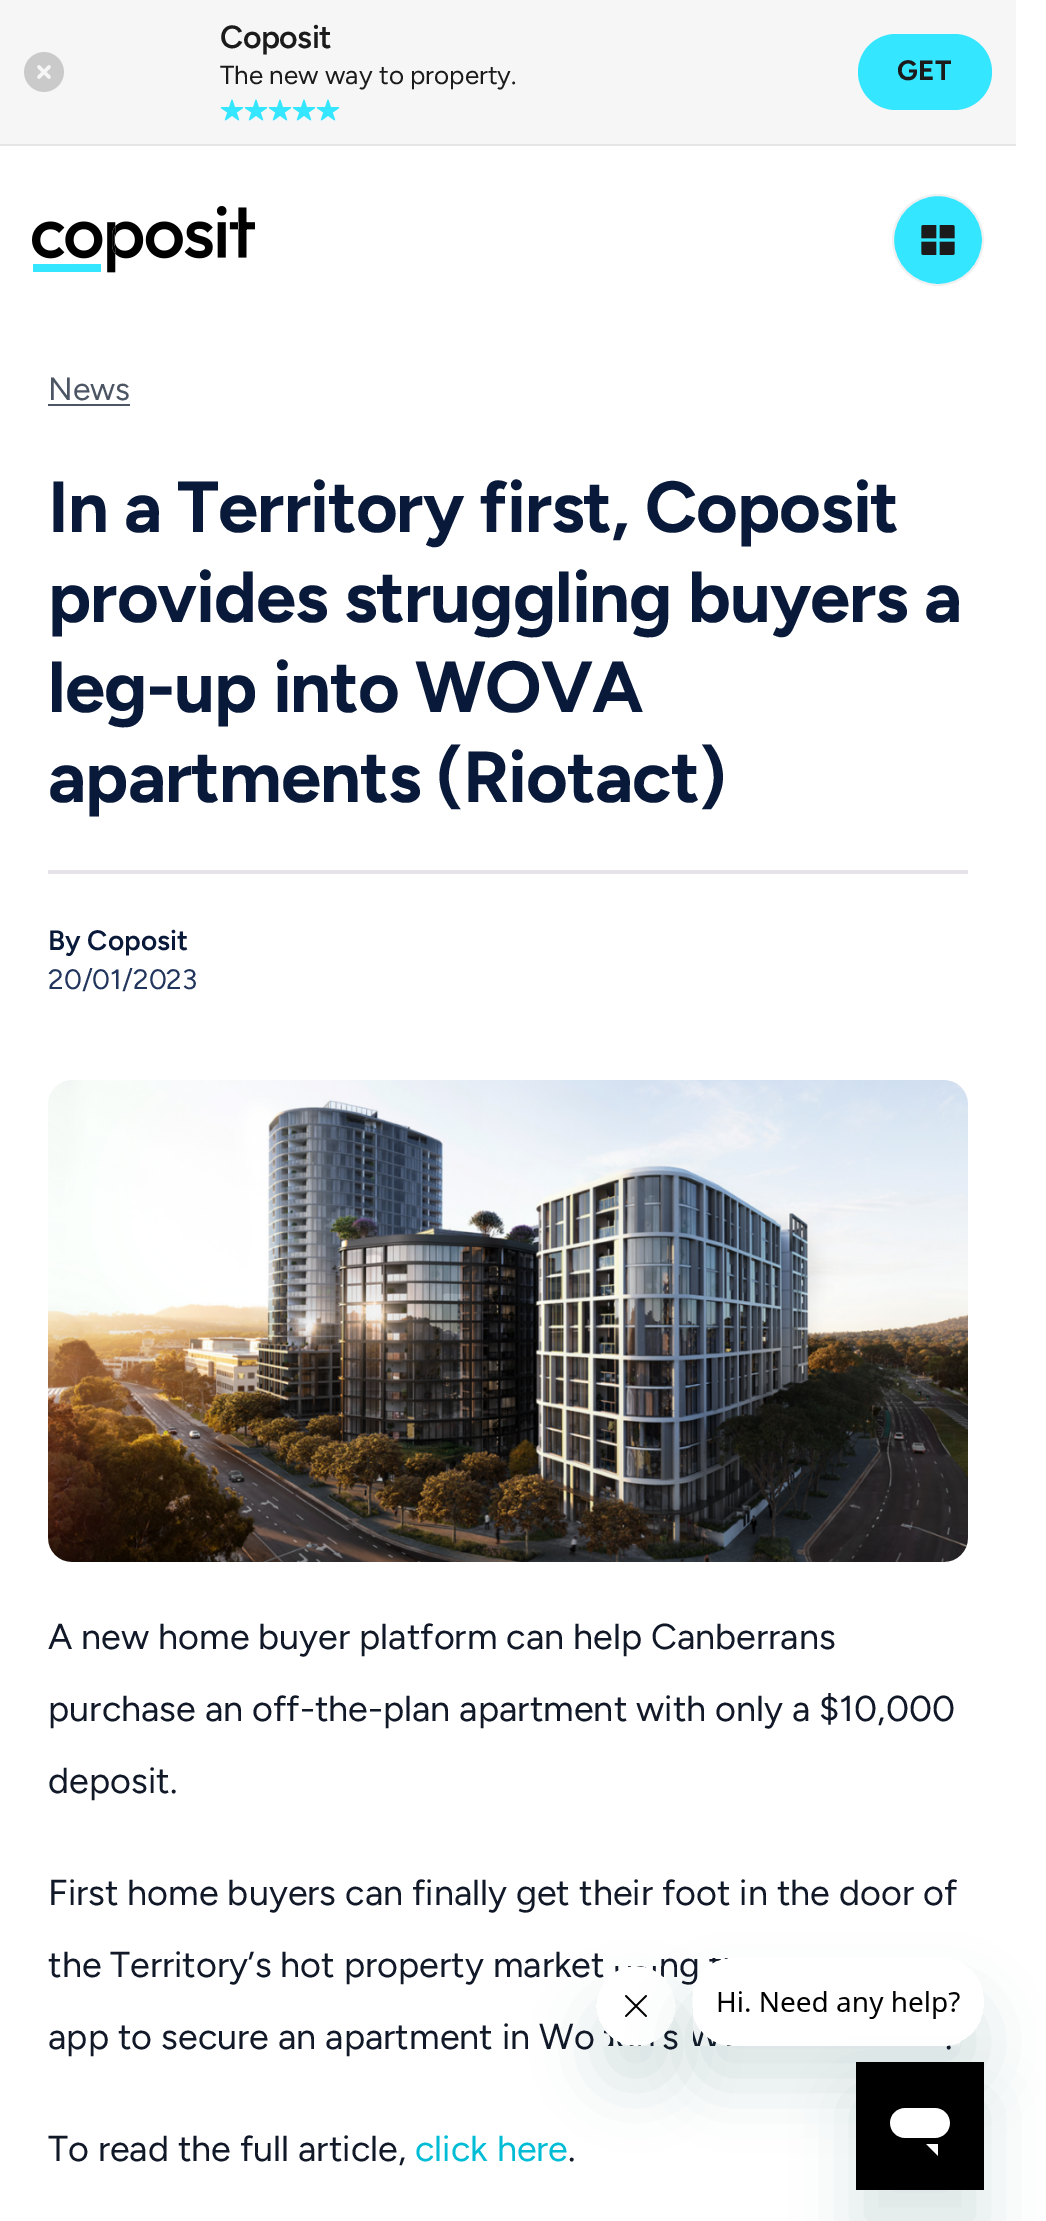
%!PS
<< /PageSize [1046 2221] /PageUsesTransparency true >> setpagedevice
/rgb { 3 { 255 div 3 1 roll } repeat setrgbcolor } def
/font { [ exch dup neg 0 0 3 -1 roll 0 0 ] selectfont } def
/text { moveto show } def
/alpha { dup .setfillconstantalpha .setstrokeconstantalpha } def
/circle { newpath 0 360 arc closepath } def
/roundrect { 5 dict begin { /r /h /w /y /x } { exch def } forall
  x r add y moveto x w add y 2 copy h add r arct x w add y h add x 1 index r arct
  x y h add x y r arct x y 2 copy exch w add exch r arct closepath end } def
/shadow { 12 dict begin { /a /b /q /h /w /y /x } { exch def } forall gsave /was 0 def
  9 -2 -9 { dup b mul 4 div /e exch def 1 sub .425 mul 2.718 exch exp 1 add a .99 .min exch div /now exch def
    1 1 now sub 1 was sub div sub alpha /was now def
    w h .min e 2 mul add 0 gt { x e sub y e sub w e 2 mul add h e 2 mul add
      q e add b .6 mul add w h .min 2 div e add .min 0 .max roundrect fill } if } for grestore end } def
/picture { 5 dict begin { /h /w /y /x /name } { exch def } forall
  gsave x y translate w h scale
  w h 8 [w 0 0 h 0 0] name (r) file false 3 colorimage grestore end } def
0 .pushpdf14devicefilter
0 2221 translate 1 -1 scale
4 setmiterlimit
255 255 255 rgb
0 0 1046 2221 rectfill
246 246 246 rgb
0 0 1016 144 rectfill
229 229 229 rgb
0 144 1016 2 rectfill
(img_01.rgb) 24 52 40 40 picture
(img_02.rgb) 220 99 24 22 picture
(img_02.rgb) 244 99 24 22 picture
(img_02.rgb) 268 99 24 22 picture
(img_02.rgb) 292 99 24 22 picture
(img_02.rgb) 316 99 24 22 picture
52 230 255 rgb
858 34 134 76 38 roundrect fill
(img_03.rgb) 32 206 223 67 picture
938 240 45 circle gsave fill grestore
240 240 241 rgb
2 setlinewidth
stroke
(img_04.rgb) 921 225 34 30 picture
75 85 99 rgb
48 404 82 2 rectfill
229 227 232 rgb
48 870 920 4 rectfill
(img_05.rgb) 48 1080 920 482 picture
gsave
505 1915 moveto 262 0 rlineto 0 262 rlineto -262 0 rlineto closepath 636 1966 moveto 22 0 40 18 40 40 rcurveto 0 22 -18 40 -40 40 rcurveto -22 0 -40 -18 -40 -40 rcurveto 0 -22 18 -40 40 -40 rcurveto closepath eoclip newpath
23 73 77 rgb
596 2006 80 80 40 30 0.15 shadow
grestore
/Figtree-SemiBold 32 font
27 27 27 rgb
220 48 moveto -0.5 0 (Coposit) ashow
/Figtree-Regular 26 font
(The new way to property.) 220 84 text
/Figtree-Bold 28 font
897 80 moveto 0.5 0 (GET) ashow
/Figtree-Regular 32 font
75 85 99 rgb
(News) 48 400 text
/Figtree-Bold 72 font
9 25 58 rgb
48 532 moveto -1 0 (In a Territory first, Coposit) ashow
48 622 moveto -1 0 (provides struggling buyers a) ashow
48 712 moveto -1 0 (leg-up into WOVA) ashow
48 802 moveto -1 0 (apartments \(Riotact\)) ashow
/Figtree-SemiBold 28 font
(By Coposit) 48 950 text
/Figtree-Regular 28 font
33 53 93 rgb
(20/01/2023) 48 989 text
/Figtree-Regular 36 font
17 24 39 rgb
(A new home buyer platform can help Canberrans) 48 1649 text
(purchase an off-the-plan apartment with only a $10,000) 48 1721 text
(deposit.) 48 1793 text
(First home buyers can finally get their foot in the door of) 48 1905 text
(the Territory’s hot property market) 48 1977 text
(ng) 659 1977 text
(app to secure an apartment in Wo) 48 2049 text
(s) 662 2049 text
(.) 945 2049 text
(To read the full article,) 48 2161 text
0 188 213 rgb
(click here) 415 2161 text
17 24 39 rgb
(.) 568 2161 text
(img_07.rgb) 604 1966 63 80 picture
gsave
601 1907 moveto 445 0 rlineto 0 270 rlineto -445 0 rlineto closepath 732 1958 moveto 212 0 rlineto 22 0 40 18 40 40 rcurveto 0 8 rlineto 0 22 -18 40 -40 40 rcurveto -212 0 rlineto -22 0 -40 -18 -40 -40 rcurveto 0 -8 rlineto 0 -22 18 -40 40 -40 rcurveto closepath eoclip newpath
23 73 77 rgb
692 1998 292 88 40 30 0.15 shadow
grestore
(img_06.rgb) 693 1958 267 88 picture
23 73 77 rgb
856 2102 128 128 0 30 0.15 shadow
(img_08.rgb) 856 2062 128 128 picture
.poppdf14devicefilter showpage
